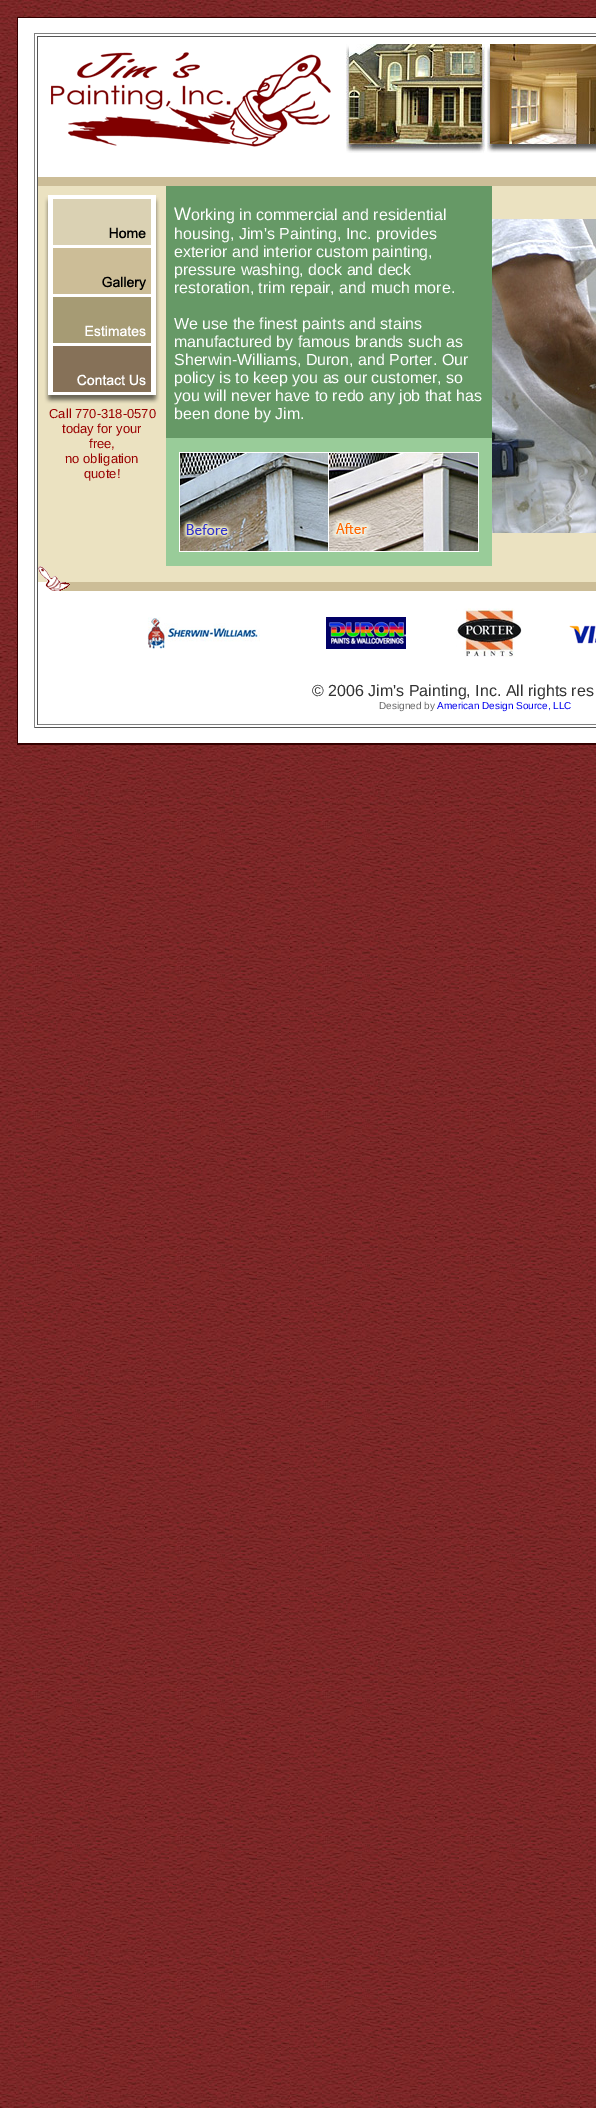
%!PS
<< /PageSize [596 2108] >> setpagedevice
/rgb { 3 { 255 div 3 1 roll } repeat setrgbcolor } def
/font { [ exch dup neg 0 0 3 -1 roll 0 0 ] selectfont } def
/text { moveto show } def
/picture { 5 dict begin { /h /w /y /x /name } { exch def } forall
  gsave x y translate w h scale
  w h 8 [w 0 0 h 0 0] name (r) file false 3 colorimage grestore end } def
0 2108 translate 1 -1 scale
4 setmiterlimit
255 255 255 rgb
0 0 596 2108 rectfill
(img_01.rgb) 0 0 596 2108 picture
18 18 578 725 rectfill
51 0 0 rgb
17 17 579 1 rectfill
17 18 1 727 rectfill
128 128 128 rgb
34 33 562 1 rectfill
85 85 85 rgb
34 727 562 1 rectfill
128 128 128 rgb
34 33 1 695 rectfill
85 85 85 rgb
37 36 559 1 rectfill
128 128 128 rgb
37 724 559 1 rectfill
85 85 85 rgb
37 36 1 689 rectfill
(img_02.rgb) 51 52 280 95 picture
(img_03.rgb) 346 44 139 109 picture
(img_04.rgb) 487 44 109 109 picture
204 189 151 rgb
38 177 558 9 rectfill
235 226 193 rgb
38 186 558 380 rectfill
102 153 102 rgb
166 186 326 252 rectfill
153 204 153 rgb
166 438 326 128 rectfill
(img_05.rgb) 179 452 150 100 picture
(img_06.rgb) 329 452 150 100 picture
(img_07.rgb) 492 219 104 314 picture
255 255 255 rgb
48 195 108 200 rectfill
(img_08.rgb) 44 197 4 198 picture
(img_09.rgb) 53 199 98 46 picture
(img_10.rgb) 53 248 98 46 picture
(img_11.rgb) 53 297 98 46 picture
(img_12.rgb) 53 346 98 46 picture
(img_13.rgb) 156 197 4 198 picture
(img_14.rgb) 44 395 116 9 picture
235 226 193 rgb
60 566 536 16 rectfill
(img_15.rgb) 38 566 22 16 picture
(img_16.rgb) 45 582 28 9 picture
204 189 151 rgb
73 582 523 9 rectfill
(img_17.rgb) 147 617 113 32 picture
(img_18.rgb) 326 617 80 32 picture
(img_19.rgb) 456 608 66 49 picture
(img_20.rgb) 569 625 27 19 picture
51 0 0 rgb
18 743 578 2 rectfill
/LiberationSans-Regular 18 font
255 255 255 rgb
(W) 174 220 text
/LiberationSans-Regular 16 font
(orking in commercial and residential) 191 220 text
(housing, Jim's Painting, Inc. provides) 174 239 text
(exterior and interior custom painting,) 174 257 text
(pressure washing, dock and deck) 174 275 text
(restoration, trim repair, and much more.) 174 293 text
(We use the finest paints and stains) 174 329 text
(manufactured by famous brands such as) 174 347 text
(Sherwin-Williams, Duron, and Porter. Our) 174 365 text
(policy is to keep you as our customer, so) 174 383 text
(you will never have to redo any job that has) 174 401 text
(been done by Jim.) 174 419 text
/LiberationSans-Regular 13 font
153 0 0 rgb
(Call 770-318-0570) 49 418 text
(today for your) 62 433 text
(free,) 89 448 text
(no obligation) 65 463 text
(quote!) 84 478 text
/LiberationSans-Regular 16 font
51 51 51 rgb
(© 2006 Jim's Painting, Inc. All rights res) 312 696 text
/LiberationSans-Regular 10 font
102 102 102 rgb
(Designed by) 379 709 text
0 0 238 rgb
(American Design Source, LLC) 437 709 text
showpage
